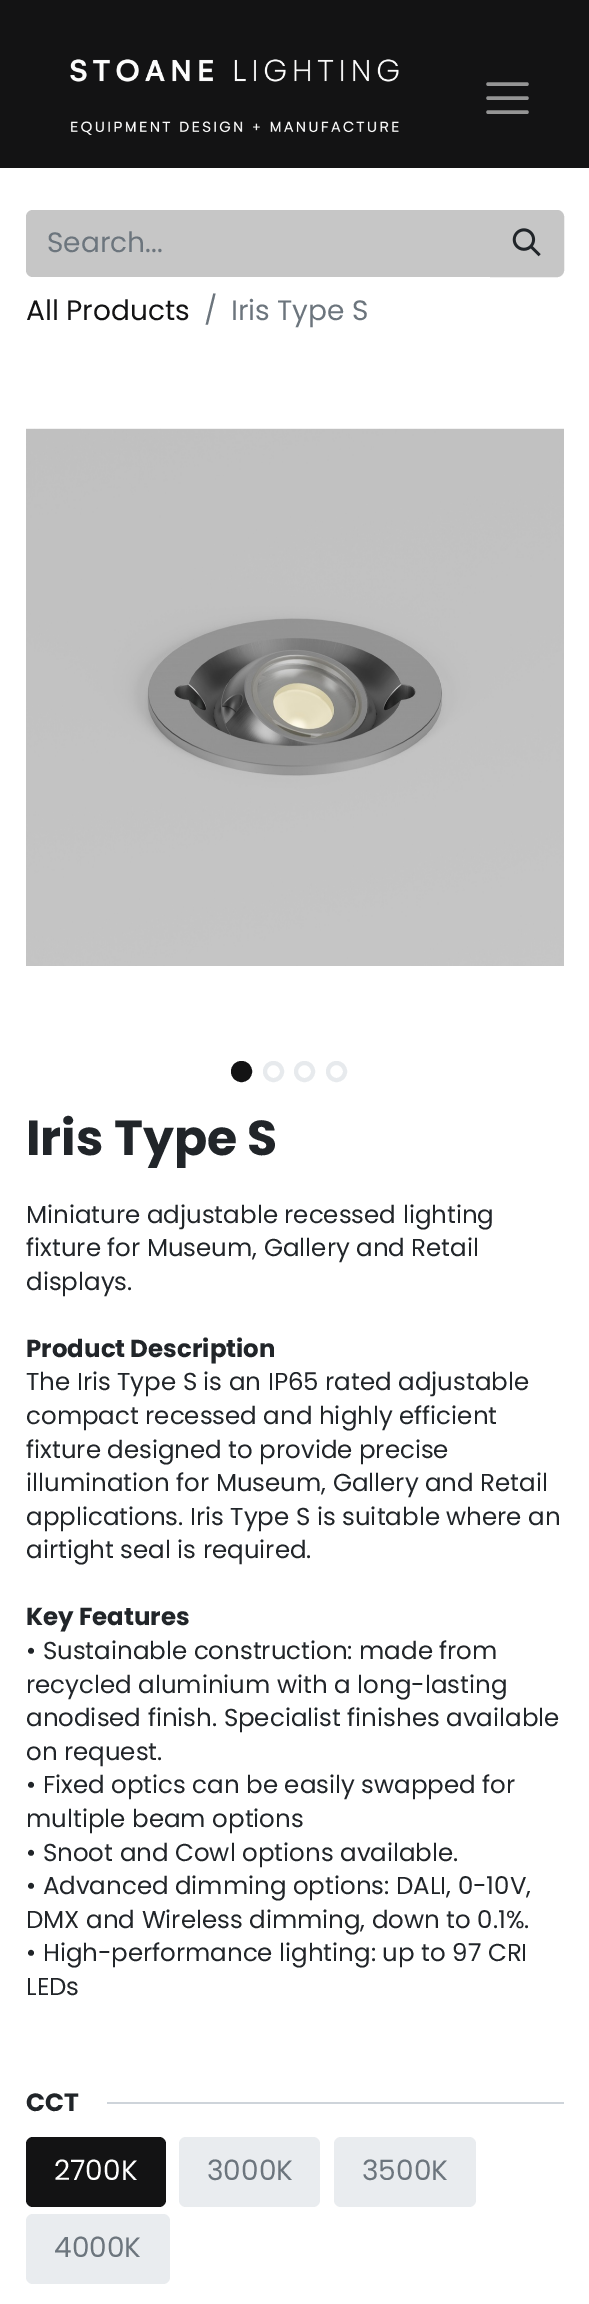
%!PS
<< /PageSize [589 2304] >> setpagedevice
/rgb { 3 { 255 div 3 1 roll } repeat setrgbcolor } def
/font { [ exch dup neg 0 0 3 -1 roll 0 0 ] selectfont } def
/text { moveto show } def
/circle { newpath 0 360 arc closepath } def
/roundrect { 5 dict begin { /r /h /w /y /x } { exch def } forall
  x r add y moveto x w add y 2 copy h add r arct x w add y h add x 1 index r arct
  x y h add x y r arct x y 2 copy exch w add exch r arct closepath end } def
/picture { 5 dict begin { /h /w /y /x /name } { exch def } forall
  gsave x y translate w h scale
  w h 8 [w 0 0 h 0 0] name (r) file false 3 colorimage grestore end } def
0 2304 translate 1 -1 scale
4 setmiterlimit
255 255 255 rgb
0 0 589 2304 rectfill
19 19 20 rgb
0 0 589 168 rectfill
(img_01.rgb) 70 59 329 76 picture
149 149 149 rgb
3.5 setlinewidth
1 setlinecap
488 84 moveto 39 0 rlineto 488 98 moveto 39 0 rlineto 488 112 moveto 39 0 rlineto stroke
198 198 198 rgb
33 210 moveto 459 0 rlineto 0 67 rlineto -459 0 rlineto -4 0 -7 -3 -7 -7 rcurveto 0 -53 rlineto 0 -4 3 -7 7 -7 rcurveto closepath fill
491 211 moveto 66 0 rlineto 3.5 0 6 2.5 6 6 rcurveto 0 53 rlineto 0 3.5 -2.5 6 -6 6 rcurveto -66 0 rlineto closepath gsave fill grestore
2 setlinewidth
0 setlinecap
stroke
(img_02.rgb) 512 228 29 29 picture
(img_03.rgb) 26 428 538 538 picture
19 19 20 rgb
241.5 1071.5 8.5 circle gsave fill grestore
4 setlinewidth
stroke
231 234 237 rgb
273.5 1071.5 8.5 circle stroke
304.5 1071.5 8.5 circle stroke
336.5 1071.5 8.5 circle stroke
206 212 218 rgb
107 2102 457 2 rectfill
19 19 20 rgb
26 2137 140 70 7 roundrect fill
233 236 239 rgb
179 2137 141 70 7 roundrect fill
334 2137 142 70 7 roundrect fill
26 2214 144 70 7 roundrect fill
/Poppins-Regular 28 font
108 117 125 rgb
(Search...) 47 252 text
19 19 20 rgb
(All Products) 26 320 text
108 117 125 rgb
(/) 204 320 text
(Iris Type S) 231 320 text
/Poppins-Bold 49 font
33 37 41 rgb
(Iris Type S) 26 1155 text
/Poppins-Regular 24.5 font
(Miniature adjustable recessed lighting) 26 1223 text
(fixture for Museum, Gallery and Retail) 26 1256 text
(displays.) 26 1290 text
/Poppins-Bold 24.5 font
(Product Description) 26 1357 text
/Poppins-Regular 24.5 font
(The Iris Type S is an IP65 rated adjustable) 26 1390 text
(compact recessed and highly efficient) 26 1424 text
(fixture designed to provide precise) 26 1458 text
(illumination for Museum, Gallery and Retail) 26 1491 text
(applications. Iris Type S is suitable where an) 26 1525 text
(airtight seal is required.) 26 1558 text
/Poppins-Bold 24.5 font
(Key Features) 26 1625 text
/Poppins-Regular 24.5 font
(• Sustainable construction: made from) 26 1659 text
(recycled aluminium with a long-lasting) 26 1693 text
(anodised finish. Specialist finishes available) 26 1726 text
(on request.) 26 1760 text
(• Fixed optics can be easily swapped for) 26 1793 text
(multiple beam options) 26 1827 text
(• Snoot and Cowl options available.) 26 1861 text
(• Advanced dimming options: DALI, 0-10V,) 26 1894 text
(DMX and Wireless dimming, down to 0.1%.) 26 1928 text
(• High-performance lighting: up to 97 CRI) 26 1961 text
(LEDs) 26 1995 text
/Poppins-Bold 25 font
(CCT) 26 2111 text
/Poppins-Regular 28 font
255 255 255 rgb
(2700K) 54 2180 text
108 117 125 rgb
(3000K) 207 2180 text
(3500K) 362 2180 text
(4000K) 54 2257 text
showpage
